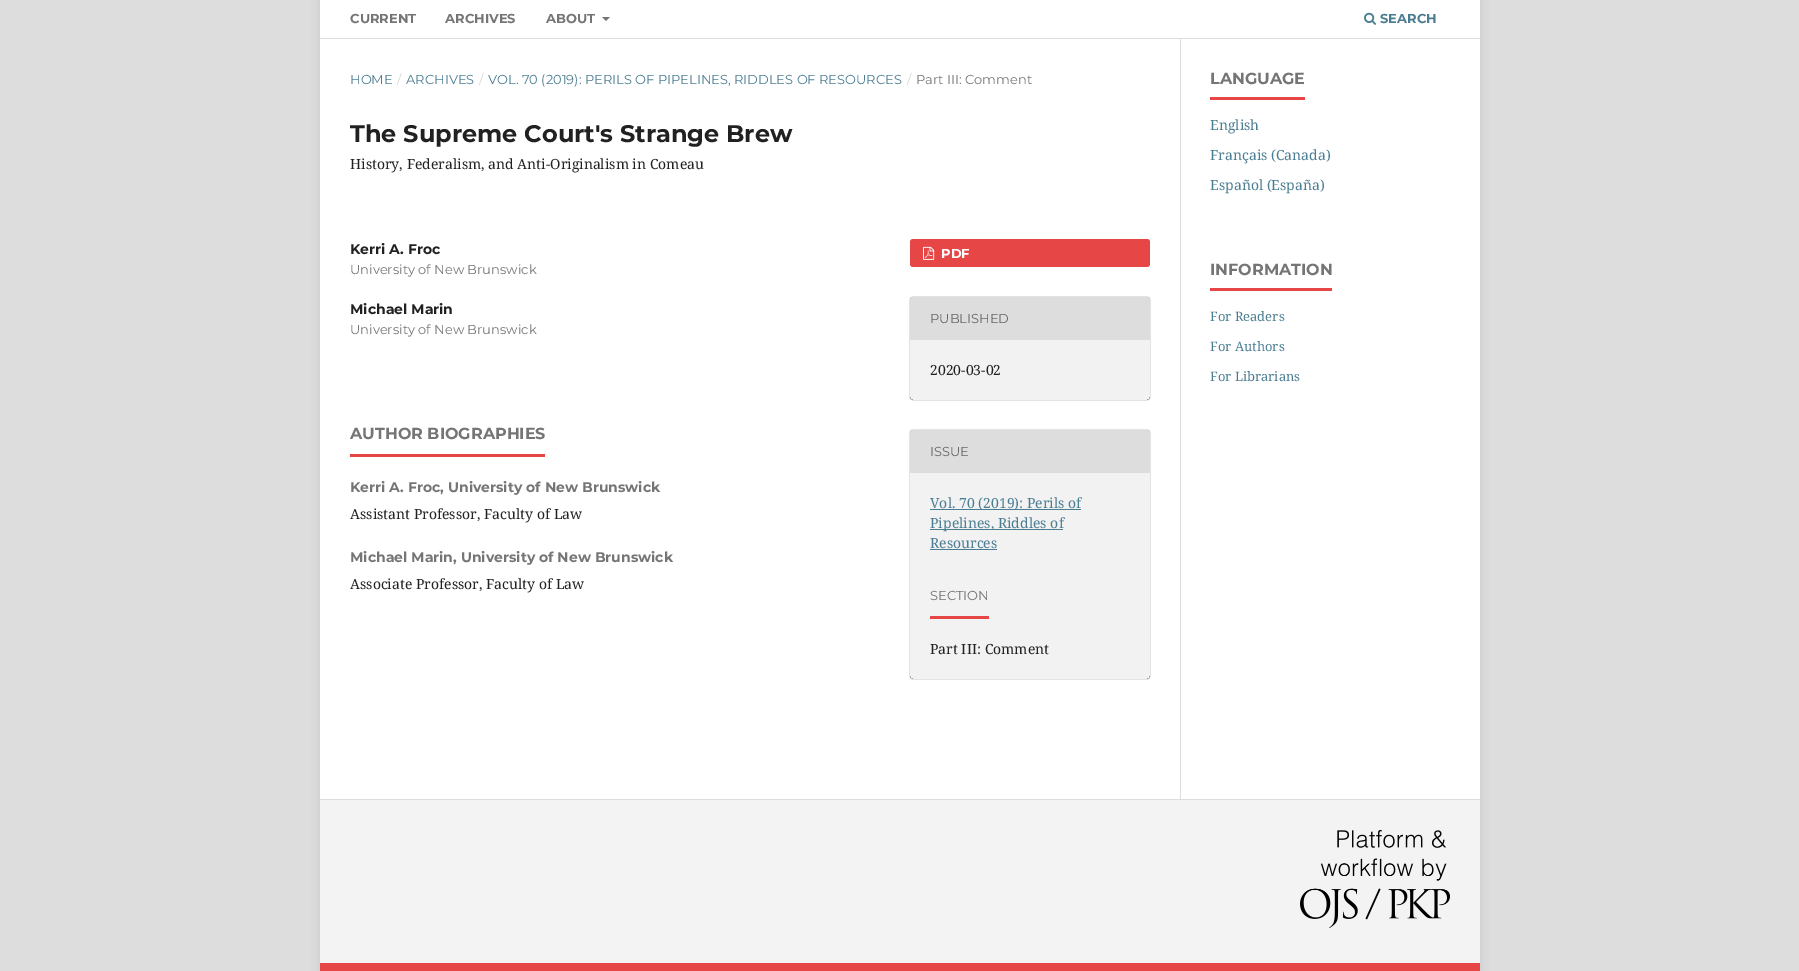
%!PS
<< /PageSize [1799 971] /PageUsesTransparency true >> setpagedevice
/rgb { 3 { 255 div 3 1 roll } repeat setrgbcolor } def
/font { [ exch dup neg 0 0 3 -1 roll 0 0 ] selectfont } def
/text { moveto show } def
/alpha { dup .setfillconstantalpha .setstrokeconstantalpha } def
/roundrect { 5 dict begin { /r /h /w /y /x } { exch def } forall
  x r add y moveto x w add y 2 copy h add r arct x w add y h add x 1 index r arct
  x y h add x y r arct x y 2 copy exch w add exch r arct closepath end } def
/shadow { 12 dict begin { /a /b /q /h /w /y /x } { exch def } forall gsave /was 0 def
  9 -2 -9 { dup b mul 4 div /e exch def 1 sub .425 mul 2.718 exch exp 1 add a .99 .min exch div /now exch def
    1 1 now sub 1 was sub div sub alpha /was now def
    w h .min e 2 mul add 0 gt { x e sub y e sub w e 2 mul add h e 2 mul add
      q e add b .6 mul add w h .min 2 div e add .min 0 .max roundrect fill } if } for grestore end } def
/picture { 5 dict begin { /h /w /y /x /name } { exch def } forall
  gsave x y translate w h scale
  w h 8 [w 0 0 h 0 0] name (r) file false 3 colorimage grestore end } def
0 .pushpdf14devicefilter
0 971 translate 1 -1 scale
4 setmiterlimit
221 221 221 rgb
0 0 1799 971 rectfill
0 0 0 rgb
320 -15 1160 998 0 5 0.1 shadow
255 255 255 rgb
320 39 1160 760 rectfill
221 221 221 rgb
320 38 1160 1 rectfill
255 255 255 rgb
320 0 1160 38 rectfill
117 117 117 rgb
602 17 moveto 8 0 rlineto -4 4 rlineto closepath fill
(img_01.rgb) 1364 12 12 13 picture
230 70 70 rgb
350 454 195 3 rectfill
910 239 240 28 3 roundrect fill
(img_02.rgb) 923 246 12 14 picture
gsave
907 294 moveto 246 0 rlineto 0 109 rlineto -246 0 rlineto closepath 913 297 moveto 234 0 rlineto 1.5 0 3 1.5 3 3 rcurveto 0 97 rlineto 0 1.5 -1.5 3 -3 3 rcurveto -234 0 rlineto -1.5 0 -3 -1.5 -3 -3 rcurveto 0 -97 rlineto 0 -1.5 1.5 -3 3 -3 rcurveto closepath eoclip newpath
0 0 0 rgb
910 297 240 103 3 0.5 0.4 shadow
grestore
0.05 alpha
0 0 0 rgb
910 297 240 103 rectfill
1 alpha
221 221 221 rgb
913 297 moveto 234 0 rlineto 1.5 0 3 1.5 3 3 rcurveto 0 40 rlineto -240 0 rlineto 0 -40 rlineto 0 -1.5 1.5 -3 3 -3 rcurveto closepath fill
gsave
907 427 moveto 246 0 rlineto 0 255 rlineto -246 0 rlineto closepath 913 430 moveto 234 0 rlineto 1.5 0 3 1.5 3 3 rcurveto 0 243 rlineto 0 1.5 -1.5 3 -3 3 rcurveto -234 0 rlineto -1.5 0 -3 -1.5 -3 -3 rcurveto 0 -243 rlineto 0 -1.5 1.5 -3 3 -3 rcurveto closepath eoclip newpath
0 0 0 rgb
910 430 240 249 3 0.5 0.4 shadow
grestore
0.05 alpha
0 0 0 rgb
910 430 240 249 rectfill
1 alpha
221 221 221 rgb
913 430 moveto 234 0 rlineto 1.5 0 3 1.5 3 3 rcurveto 0 40 rlineto -240 0 rlineto 0 -40 rlineto 0 -1.5 1.5 -3 3 -3 rcurveto closepath fill
75 125 146 rgb
930 509 151 1 rectfill
930 529 133 1 rectfill
930 549 67 1 rectfill
230 70 70 rgb
930 616 59 3 rectfill
221 221 221 rgb
1180 39 1 760 rectfill
230 70 70 rgb
1210 97 95 3 rectfill
1210 288 122 3 rectfill
243 243 243 rgb
320 800 1160 163 rectfill
221 221 221 rgb
320 799 1160 1 rectfill
230 70 70 rgb
320 963 1160 8 rectfill
(img_03.rgb) 1300 830 150 98 picture
/Montserrat-Bold 13 font
117 117 117 rgb
(CURRENT) 350 23 text
(ARCHIVES) 445 23 text
(ABOUT) 546 23 text
75 125 146 rgb
(SEARCH) 1380 23 text
/Montserrat-Regular 13 font
(HOME) 350 84 text
214 214 214 rgb
(/) 397 84 text
75 125 146 rgb
(ARCHIVES) 406 84 text
214 214 214 rgb
(/) 479 84 text
75 125 146 rgb
(VOL. 70 \(2019\): PERILS OF PIPELINES, RIDDLES OF RESOURCES) 488 84 text
214 214 214 rgb
(/) 907 84 text
117 117 117 rgb
(Part III: Comment) 916 84 text
/Montserrat-Bold 24 font
33 33 33 rgb
(The Supreme Court's Strange Brew) 350 142 text
/NotoSerif-Regular 14 font
(History, Federalism, and Anti-Originalism in Comeau) 350 169 text
/Montserrat-Bold 14 font
(Kerri A. Froc) 350 254 text
/Montserrat-Regular 13 font
117 117 117 rgb
(University of New Brunswick) 350 274 text
/Montserrat-Bold 14 font
33 33 33 rgb
(Michael Marin) 350 314 text
/Montserrat-Regular 13 font
117 117 117 rgb
(University of New Brunswick) 350 334 text
/Montserrat-Bold 16 font
(AUTHOR BIOGRAPHIES) 350 439 text
/Montserrat-Bold 14 font
(Kerri A. Froc, University of New Brunswick) 350 492 text
/NotoSerif-Regular 14 font
33 33 33 rgb
(Assistant Professor, Faculty of Law) 350 519 text
/Montserrat-Bold 14 font
117 117 117 rgb
(Michael Marin, University of New Brunswick) 350 562 text
/NotoSerif-Regular 14 font
33 33 33 rgb
(Associate Professor, Faculty of Law) 350 589 text
/Montserrat-Bold 13 font
255 255 255 rgb
(PDF) 941 258 text
/Montserrat-Regular 13 font
102 102 102 rgb
(PUBLISHED) 930 323 text
/NotoSerif-Regular 14 font
33 33 33 rgb
(2020-03-02) 930 375 text
/Montserrat-Regular 13 font
102 102 102 rgb
(ISSUE) 930 456 text
/NotoSerif-Regular 14 font
75 125 146 rgb
(Vol. 70 \(2019\): Perils of) 930 508 text
(Pipelines, Riddles of) 930 528 text
(Resources) 930 548 text
/Montserrat-Regular 13 font
111 111 111 rgb
(SECTION) 930 600 text
/NotoSerif-Regular 14 font
33 33 33 rgb
(Part III: Comment) 930 654 text
/Montserrat-Bold 16 font
117 117 117 rgb
(LANGUAGE) 1210 84 text
/NotoSerif-Regular 14 font
75 125 146 rgb
(English) 1210 130 text
(Français \(Canada\)) 1210 160 text
(Español \(España\)) 1210 190 text
/Montserrat-Bold 16 font
117 117 117 rgb
(INFORMATION) 1210 275 text
/NotoSerif-Regular 13 font
75 125 146 rgb
(For Readers) 1210 321 text
(For Authors) 1210 351 text
(For Librarians) 1210 381 text
.poppdf14devicefilter showpage
